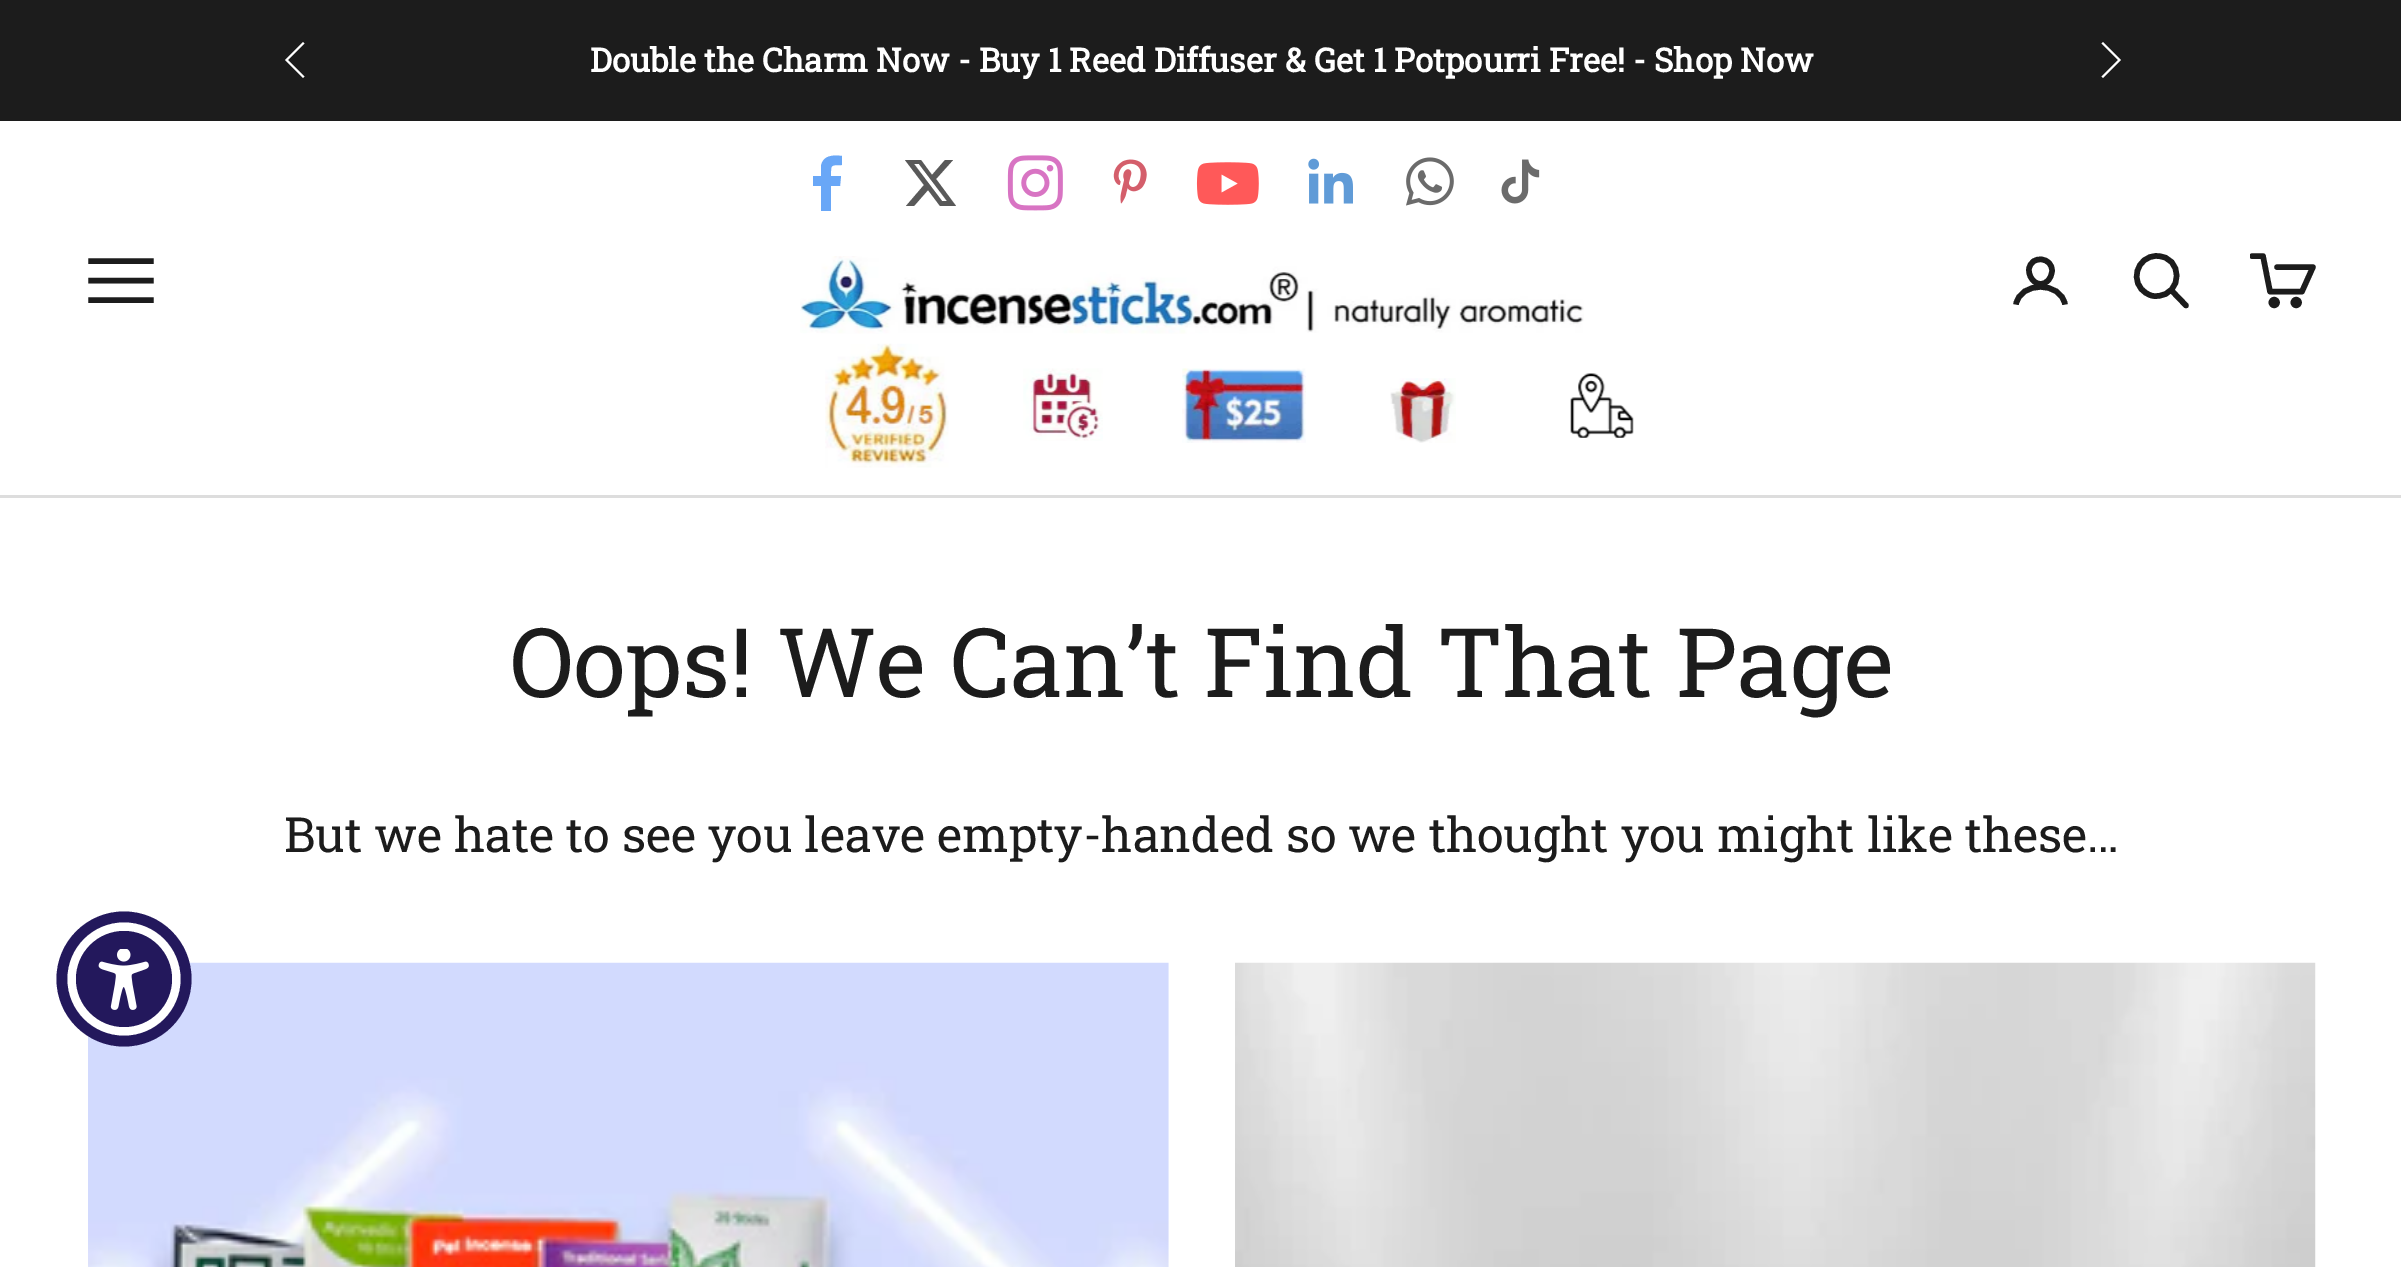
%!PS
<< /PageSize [2401 1267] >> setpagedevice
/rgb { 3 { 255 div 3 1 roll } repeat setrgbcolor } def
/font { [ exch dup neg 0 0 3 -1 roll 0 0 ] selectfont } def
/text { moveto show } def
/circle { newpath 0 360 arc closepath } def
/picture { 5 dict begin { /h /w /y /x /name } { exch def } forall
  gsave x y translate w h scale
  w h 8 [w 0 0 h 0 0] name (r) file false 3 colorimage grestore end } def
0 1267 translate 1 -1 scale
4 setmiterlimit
255 255 255 rgb
0 0 2401 1267 rectfill
28 28 28 rgb
0 0 2401 121 rectfill
255 255 255 rgb
2.1 setlinewidth
2 setlinecap
303 43.5 moveto -16.5 16.5 rlineto 16.5 16.5 rlineto stroke
2103 76.5 moveto 16.5 -16.5 rlineto -16.5 -16.5 rlineto stroke
221 221 221 rgb
0 495 2401 3 rectfill
105 167 247 rgb
821 211 moveto 0 -25 rlineto -8 0 rlineto 0 -10 rlineto 8 0 rlineto 0 -10 rlineto 2 -11 12 -11 21 -10 rcurveto 0 9 rlineto -12 0 -11 0 -11 11 rcurveto 10 0 rlineto -1 10 rlineto -9 0 rlineto 0 25 rlineto closepath eofill
89 89 89 rgb
945 160 moveto 8 0 rlineto -17 19 rlineto 20 27 rlineto -16 0 rlineto -12 -16 rlineto -14 16 rlineto -8 0 rlineto 18 -21 rlineto -19 -25 rlineto 16 0 rlineto 11 15 rlineto closepath 942 201 moveto 5 0 rlineto -28 -37 rlineto -5 0 rlineto closepath fill
(img_01.rgb) 1007 155 56 56 picture
(img_02.rgb) 1113 159 34 45 picture
(img_03.rgb) 1196 162 63 43 picture
(img_04.rgb) 1308 158 45 46 picture
(img_05.rgb) 1406 157 48 49 picture
(img_06.rgb) 1501 159 39 45 picture
28 28 28 rgb
5.5 setlinewidth
1 setlinecap
1 setlinejoin
2052 271.5 moveto -0.5 3.5 -1.5 6.5 -4 9 rcurveto -8.5 9 -20 -1 -19 -11.5 rcurveto 2 -14.5 24 -12 23 2.5 rcurveto closepath stroke
0 setlinecap
0 setlinejoin
2016 304.5 moveto 4 -23.5 45 -23.5 49 0 rcurveto stroke
2157 256 moveto -20.5 -0.5 -28.5 27.5 -10 37.5 rcurveto 3 2 6.5 3 10 2.5 rcurveto 26.5 -1 26 -40 0 -40 rcurveto closepath stroke
1 setlinecap
2172 291 moveto 14 14.5 rlineto stroke
gsave
2250 248 66 66 rectclip
1 setlinejoin
2277 267 moveto 36 0 rlineto -11 24.5 rlineto -32 0 rlineto -7 -35.5 rlineto -11 0 rlineto stroke
grestore
0 setlinecap
2274.2 302.5 2.8 circle stroke
2296.2 302.5 2.8 circle stroke
(img_07.rgb) 825 343 124 125 picture
(img_08.rgb) 1023 368 80 73 picture
(img_09.rgb) 1182 368 124 75 picture
(img_10.rgb) 1390 378 66 65 picture
(img_11.rgb) 1570 373 64 65 picture
2 setlinecap
91 300 moveto 60 0 rlineto 91 280.5 moveto 60 0 rlineto 91 261 moveto 60 0 rlineto stroke
(img_12.rgb) 800 256 784 78 picture
(img_13.rgb) 88 962 1081 305 picture
(img_14.rgb) 1235 962 1081 305 picture
35 24 92 rgb
124 979 67.5 circle fill
255 255 255 rgb
124 979 56.5 circle fill
35 24 92 rgb
124 979 48 circle fill
(img_15.rgb) 98 949 51 61 picture
/RobotoSlab-Bold 33 font
255 255 255 rgb
(Double the Charm Now - Buy 1 Reed Diffuser & Get 1 Potpourri Free! - Shop Now) 590 72 text
/RobotoSlab-Regular 96 font
28 28 28 rgb
(Oops! We Can’t Find That Page) 510 697 text
/RobotoSlab-Regular 48.4 font
(But we hate to see you leave empty-handed so we thought you might like these…) 284 852 text
showpage
